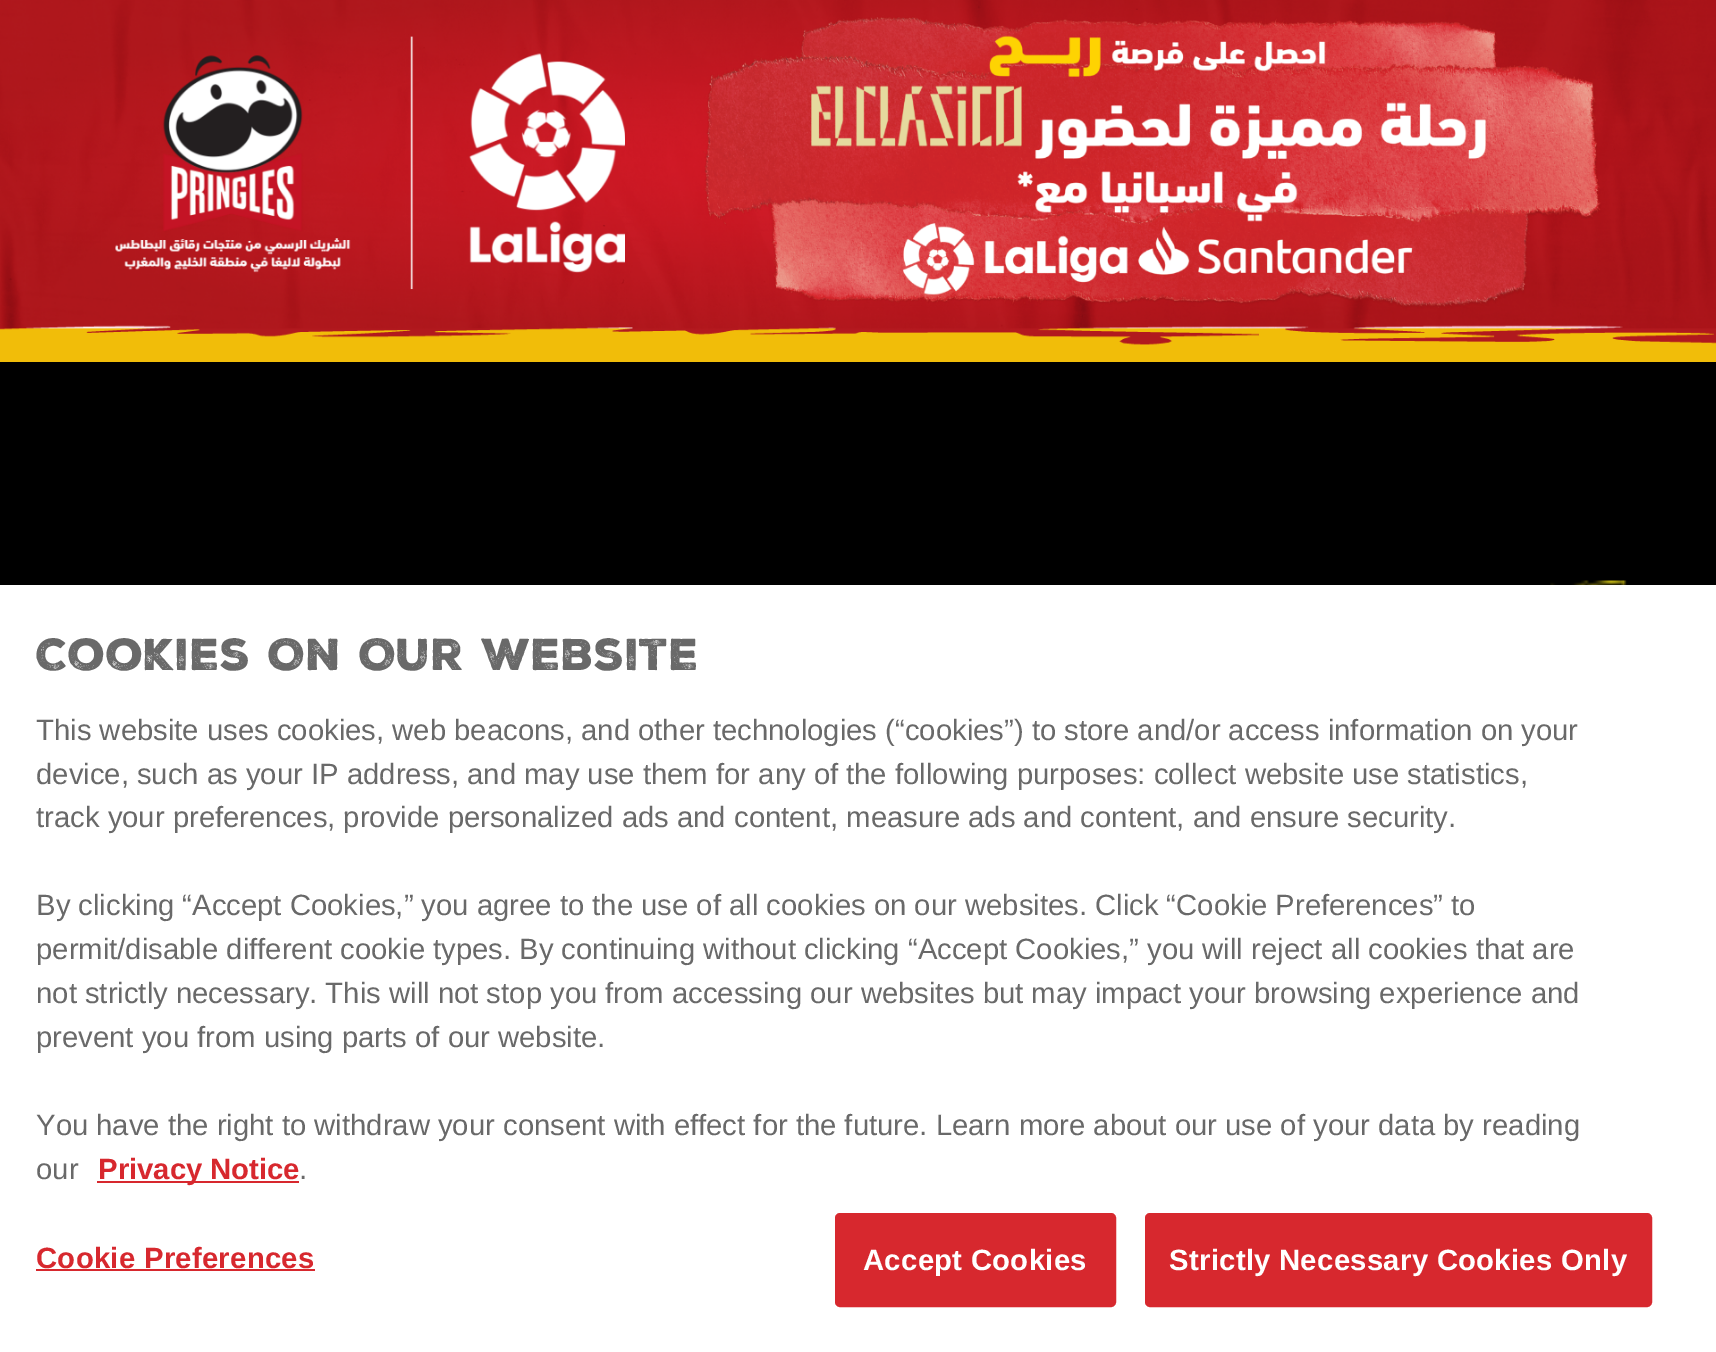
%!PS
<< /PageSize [1716 1352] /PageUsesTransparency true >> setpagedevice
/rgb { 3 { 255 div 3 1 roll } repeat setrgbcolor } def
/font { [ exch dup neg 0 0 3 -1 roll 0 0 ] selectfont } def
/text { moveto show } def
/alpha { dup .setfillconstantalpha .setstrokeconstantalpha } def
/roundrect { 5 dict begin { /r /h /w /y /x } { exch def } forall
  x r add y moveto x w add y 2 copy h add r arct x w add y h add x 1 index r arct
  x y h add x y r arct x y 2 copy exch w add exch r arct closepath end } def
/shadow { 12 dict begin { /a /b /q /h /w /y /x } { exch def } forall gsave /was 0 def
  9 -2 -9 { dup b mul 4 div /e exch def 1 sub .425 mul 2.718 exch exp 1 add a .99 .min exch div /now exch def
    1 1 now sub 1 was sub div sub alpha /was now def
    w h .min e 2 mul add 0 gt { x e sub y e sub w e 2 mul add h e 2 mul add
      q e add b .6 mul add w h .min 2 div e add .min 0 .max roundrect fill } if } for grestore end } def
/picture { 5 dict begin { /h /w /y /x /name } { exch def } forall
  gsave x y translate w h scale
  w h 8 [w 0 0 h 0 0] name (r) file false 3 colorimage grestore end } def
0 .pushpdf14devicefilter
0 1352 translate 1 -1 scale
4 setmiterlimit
0 0 0 rgb
0 0 1716 1352 rectfill
241 189 9 rgb
0 326 1716 36 rectfill
(img_01.rgb) 0 0 1716 345 picture
(img_02.rgb) 1550 580 77 5 picture
0 0 0 rgb
0 585 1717 767 0 20 0.2 shadow
255 255 255 rgb
0 585 1716 767 rectfill
215 40 46 rgb
97 1181 202 2 rectfill
36 1269 279 2 rectfill
836 1214 279 92 4 roundrect gsave fill grestore
2 setlinewidth
stroke
1146 1214 505 92 4 roundrect gsave fill grestore
stroke
/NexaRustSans-Black 43.25 font
105 105 105 rgb
(Cookies On Our Website) 36 670 text
/LiberationSans-Regular 29.27 font
(This website uses cookies, web beacons, and other technologies \(“cookies”\) to store and/or access information on your) 36 740 text
(device, such as your IP address, and may use them for any of the following purposes: collect website use statistics,) 36 784 text
(track your preferences, provide personalized ads and content, measure ads and content, and ensure security.) 36 827 text
(By clicking “Accept Cookies,” you agree to the use of all cookies on our websites. Click “Cookie Preferences” to) 36 915 text
(permit/disable different cookie types. By continuing without clicking “Accept Cookies,” you will reject all cookies that are) 36 959 text
(not strictly necessary. This will not stop you from accessing our websites but may impact your browsing experience and) 36 1003 text
(prevent you from using parts of our website.) 36 1047 text
(You have the right to withdraw your consent with effect for the future. Learn more about our use of your data by reading) 36 1135 text
(our) 36 1179 text
/LiberationSans-Bold 29.27 font
215 40 46 rgb
(Privacy Notice) 98 1179 text
/LiberationSans-Regular 29.27 font
105 105 105 rgb
(.) 299 1179 text
/LiberationSans-Bold 29.27 font
215 40 46 rgb
36 1268 moveto 0.3 0 (Cookie Preferences) ashow
255 255 255 rgb
863 1270 moveto 0.3 0 (Accept Cookies) ashow
1169 1270 moveto 0.3 0 (Strictly Necessary Cookies Only) ashow
.poppdf14devicefilter showpage
